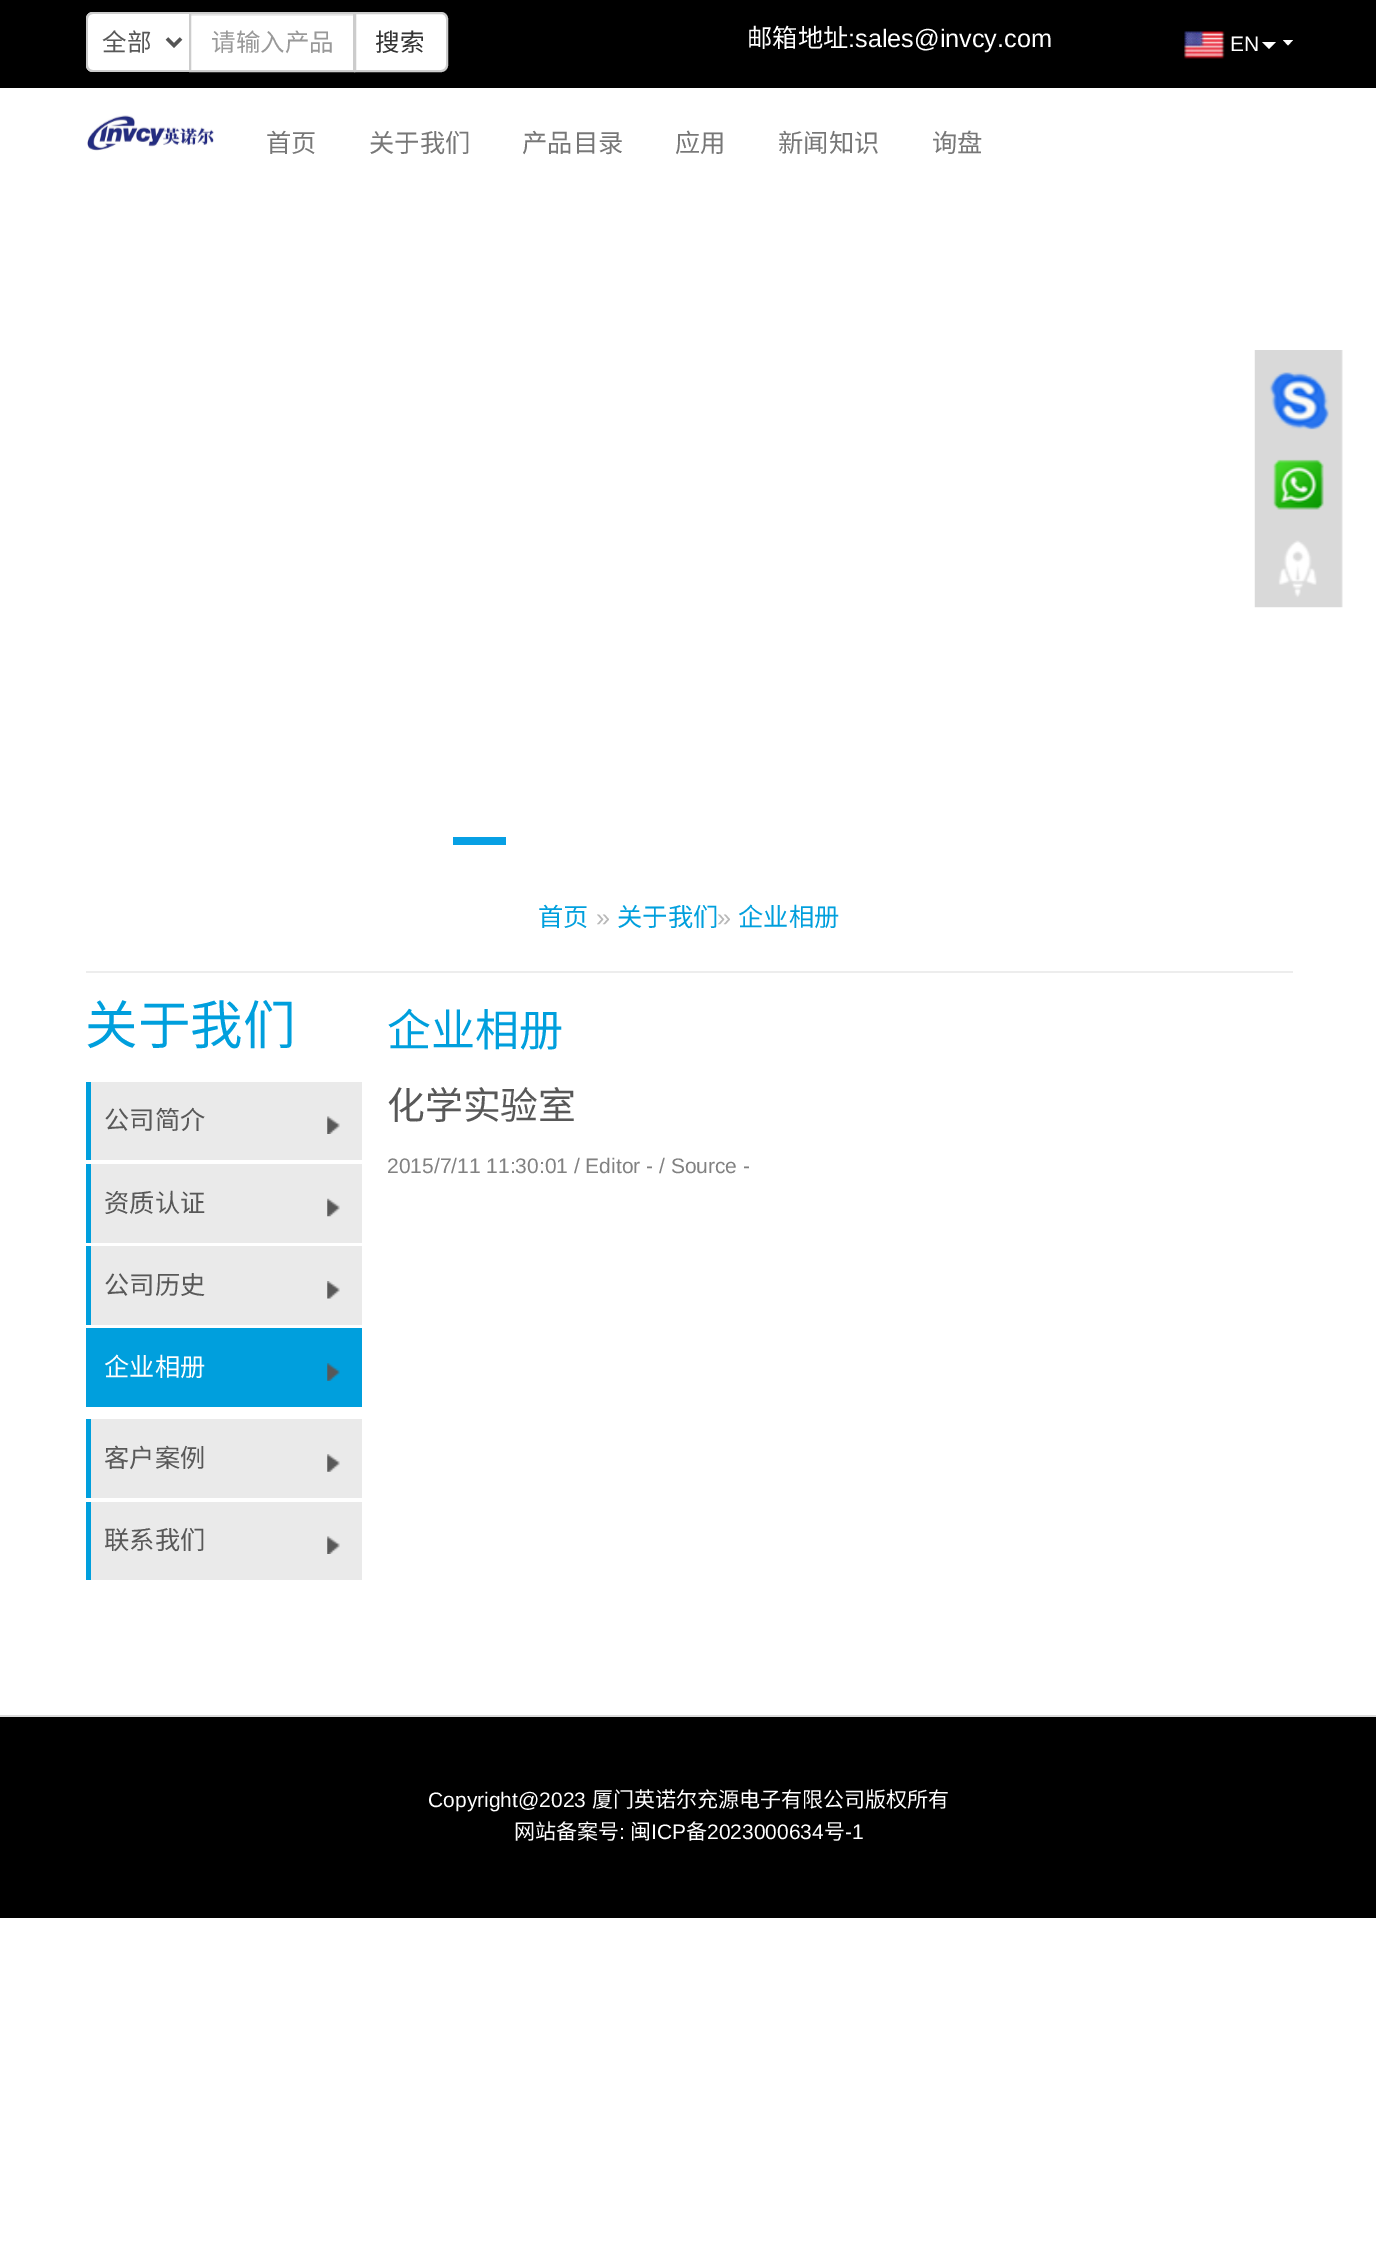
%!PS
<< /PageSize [1376 2260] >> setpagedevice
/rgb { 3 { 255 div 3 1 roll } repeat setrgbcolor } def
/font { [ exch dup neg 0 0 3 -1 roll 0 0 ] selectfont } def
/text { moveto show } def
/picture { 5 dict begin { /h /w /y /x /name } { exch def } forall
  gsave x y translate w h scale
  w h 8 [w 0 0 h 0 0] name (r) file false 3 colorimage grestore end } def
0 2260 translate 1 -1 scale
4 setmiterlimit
255 255 255 rgb
0 0 1376 2260 rectfill
0 0 0 rgb
0 0 1376 88 rectfill
255 255 255 rgb
93 12 moveto 96 0 rlineto 0 60 rlineto -96 0 rlineto -4 0 -7 -3 -7 -7 rcurveto 0 -46 rlineto 0 -4 3 -7 7 -7 rcurveto closepath fill
204 204 204 rgb
93 12 moveto 96 0 rlineto 0 60 rlineto -96 0 rlineto -4 0 -7 -3 -7 -7 rcurveto 0 -46 rlineto 0 -4 3 -7 7 -7 rcurveto closepath 93 14 moveto 96 0 rlineto 0 56 rlineto -96 0 rlineto -3 0 -5 -2 -5 -5 rcurveto 0 -46 rlineto 0 -3 2 -5 5 -5 rcurveto closepath eofill
85 85 85 rgb
3.5 setlinewidth
167 38.5 moveto 7 7 rlineto 7 -7 rlineto stroke
255 255 255 rgb
191 16 162 54 rectfill
236 236 236 rgb
191 14 163 2 rectfill
255 255 255 rgb
355 13 moveto 86 0 rlineto 3.5 0 6 2.5 6 6 rcurveto 0 46 rlineto 0 3.5 -2.5 6 -6 6 rcurveto -86 0 rlineto closepath gsave fill grestore
204 204 204 rgb
2 setlinewidth
stroke
190 13 164 58 rectstroke
(img_01.rgb) 1184 31 41 28 picture
255 255 255 rgb
1262 42 moveto 14 0 rlineto -7 7 rlineto closepath 1283 40 moveto 10 0 rlineto -5 5.5 rlineto closepath fill
(img_02.rgb) 87 115 127 36 picture
(img_03.rgb) 1254 350 89 258 picture
7 160 228 rgb
453 837 53 8 rectfill
237 237 237 rgb
86 971 1207 2 rectfill
234 234 234 rgb
91 1082 271 78 rectfill
0 159 221 rgb
86 1082 5 78 rectfill
(img_04.rgb) 327 1116 13 18 picture
234 234 234 rgb
91 1164 271 79 rectfill
0 159 221 rgb
86 1164 5 79 rectfill
(img_05.rgb) 327 1198 13 19 picture
234 234 234 rgb
91 1246 271 79 rectfill
0 159 221 rgb
86 1246 5 79 rectfill
(img_06.rgb) 327 1281 13 18 picture
86 1328 276 79 rectfill
(img_07.rgb) 327 1363 13 18 picture
234 234 234 rgb
91 1419 271 79 rectfill
0 159 221 rgb
86 1419 5 79 rectfill
(img_08.rgb) 327 1454 13 18 picture
234 234 234 rgb
91 1502 271 78 rectfill
0 159 221 rgb
86 1502 5 78 rectfill
(img_04.rgb) 327 1536 13 18 picture
0 0 0 rgb
0 1717 1376 201 rectfill
220 220 220 rgb
0 1715 1376 2 rectfill
/NotoSansCJKSC-Regular 24.5 font
88 88 88 rgb
(全部) 102 51 text
153 153 153 rgb
(请输入产品) 211 51 text
51 51 51 rgb
(搜索) 375 51 text
/NotoSansCJKSC-Regular 25.25 font
255 255 255 rgb
(邮箱地址) 747 47 text
/LiberationSans-Regular 25.25 font
(:sales@invcy.com) 848 47 text
/LiberationSans-Regular 21 font
(EN) 1230 51 text
/NotoSansCJKSC-Regular 25.25 font
119 119 119 rgb
(首页) 266 152 text
(关于我们) 369 152 text
(产品目录) 522 152 text
(应用) 675 152 text
(新闻知识) 778 152 text
(询盘) 932 152 text
0 159 221 rgb
(首页) 538 926 text
/LiberationSans-Regular 25.25 font
184 184 184 rgb
(») 596 926 text
/NotoSansCJKSC-Regular 25.25 font
0 159 221 rgb
(关于我们) 617 926 text
/LiberationSans-Regular 25.25 font
184 184 184 rgb
(») 717 926 text
/NotoSansCJKSC-Regular 25.25 font
0 159 221 rgb
(企业相册) 738 926 text
/NotoSansCJKSC-Regular 52.5 font
(关于我们) 85 1044 text
/NotoSansCJKSC-Regular 25.25 font
88 88 88 rgb
(公司简介) 104 1129 text
(资质认证) 104 1212 text
(公司历史) 104 1294 text
255 255 255 rgb
(企业相册) 104 1376 text
88 88 88 rgb
(客户案例) 104 1467 text
(联系我们) 104 1549 text
/NotoSansCJKSC-Regular 44 font
0 159 221 rgb
(企业相册) 387 1046 text
/NotoSansCJKSC-Regular 37.75 font
88 88 88 rgb
(化学实验室) 387 1119 text
/LiberationSans-Regular 21 font
129 129 129 rgb
(2015/7/11 11:30:01 / Editor - / Source -) 387 1173 text
255 255 255 rgb
(Copyright@2023) 428 1807 text
/NotoSansCJKSC-Regular 21 font
(厦门英诺尔充源电子有限公司版权所有) 592 1807 text
(网站备案号) 514 1839 text
/LiberationSans-Regular 21 font
(:) 619 1839 text
/NotoSansCJKSC-Regular 21 font
(闽) 630 1839 text
/LiberationSans-Regular 21 font
(ICP) 651 1839 text
/NotoSansCJKSC-Regular 21 font
(备) 686 1839 text
/LiberationSans-Regular 21 font
(2023000634) 707 1839 text
/NotoSansCJKSC-Regular 21 font
(号) 824 1839 text
/LiberationSans-Regular 21 font
(-1) 845 1839 text
showpage
